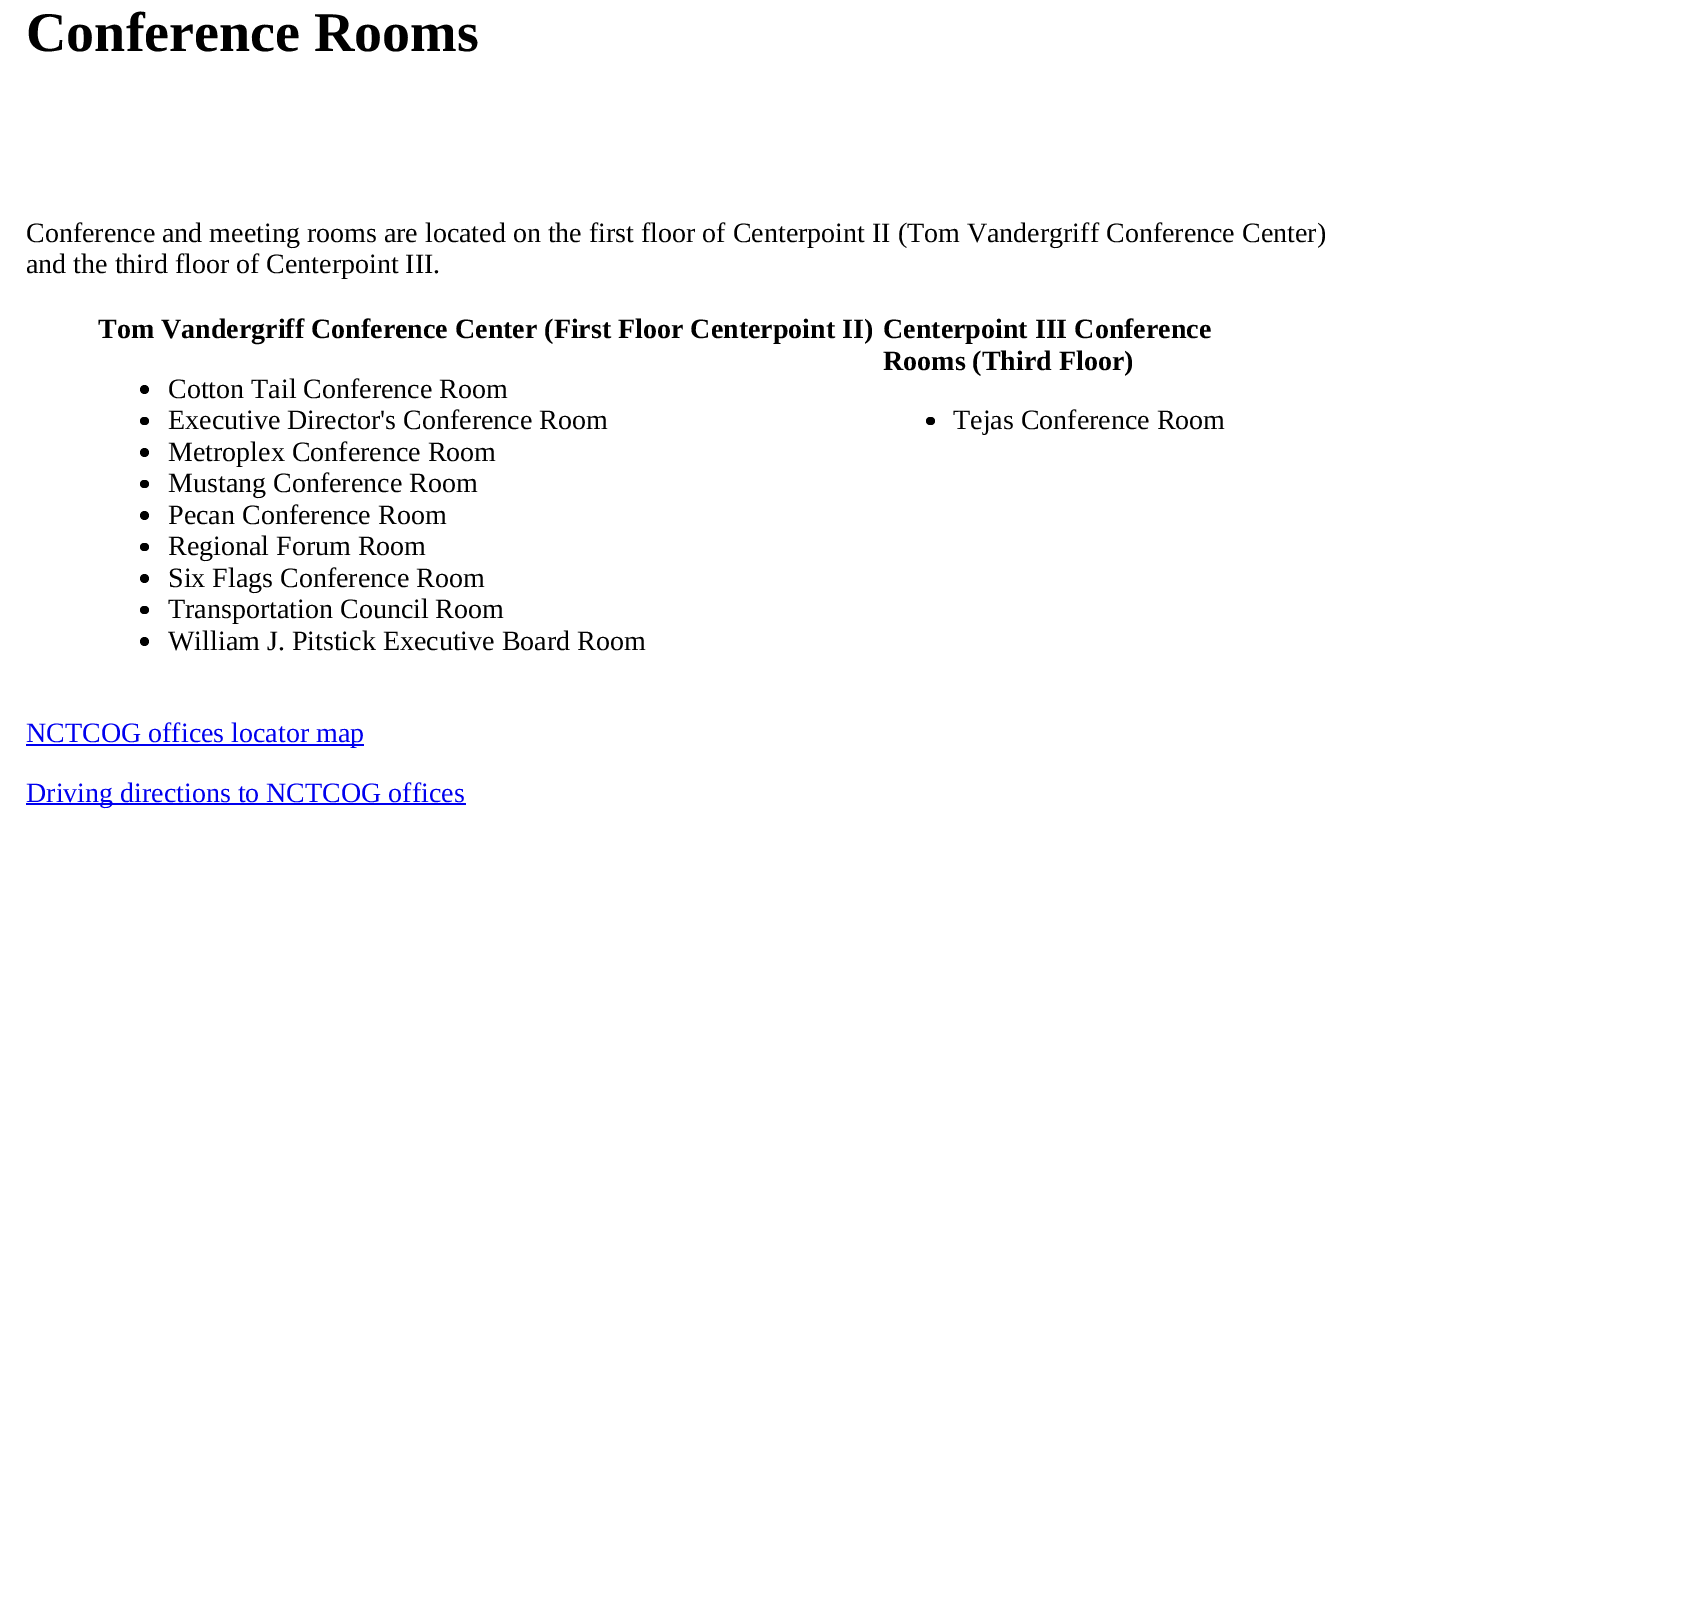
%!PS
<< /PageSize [1682 1601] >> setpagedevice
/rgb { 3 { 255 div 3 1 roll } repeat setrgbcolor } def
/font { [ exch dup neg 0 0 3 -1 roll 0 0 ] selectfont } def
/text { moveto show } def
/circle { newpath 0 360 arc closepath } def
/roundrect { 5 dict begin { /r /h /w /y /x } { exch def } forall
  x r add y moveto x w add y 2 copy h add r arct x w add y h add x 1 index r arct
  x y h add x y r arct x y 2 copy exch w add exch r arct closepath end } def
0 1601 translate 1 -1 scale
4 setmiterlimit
255 255 255 rgb
0 0 1682 1601 rectfill
0 0 0 rgb
144.5 389.5 4.5 circle fill
140 417 9 8 4 roundrect fill
144.5 452.5 4.5 circle fill
140 480 9 8 4 roundrect fill
144.5 515.5 4.5 circle fill
140 543 9 8 4 roundrect fill
144.5 578.5 4.5 circle fill
140 606 9 8 4 roundrect fill
144.5 641.5 4.5 circle fill
926 417 9 8 4 roundrect fill
0 0 238 rgb
26 744 338 2 rectfill
26 803 440 2 rectfill
/LiberationSerif-Bold 56 font
0 0 0 rgb
(Conference Rooms) 26 51 text
/LiberationSerif-Regular 28 font
(Conference and meeting rooms are located on the first floor of Centerpoint II \(Tom Vandergriff Conference Center\)) 26 242 text
(and the third floor of Centerpoint III.) 26 273 text
/LiberationSerif-Bold 28 font
(Tom Vandergriff Conference Center \(First Floor Centerpoint II\)) 98 338 text
/LiberationSerif-Regular 28 font
(Cotton Tail Conference Room) 168 398 text
(Executive Director's Conference Room) 168 429 text
(Metroplex Conference Room) 168 461 text
(Mustang Conference Room) 168 492 text
(Pecan Conference Room) 168 524 text
(Regional Forum Room) 168 555 text
(Six Flags Conference Room) 168 587 text
(Transportation Council Room) 168 618 text
(William J. Pitstick Executive Board Room) 168 650 text
/LiberationSerif-Bold 28 font
(Centerpoint III Conference) 883 338 text
(Rooms \(Third Floor\)) 883 370 text
/LiberationSerif-Regular 28 font
(Tejas Conference Room) 953 429 text
0 0 238 rgb
(NCTCOG offices locator map) 26 742 text
(Driving directions to NCTCOG offices) 26 802 text
showpage
